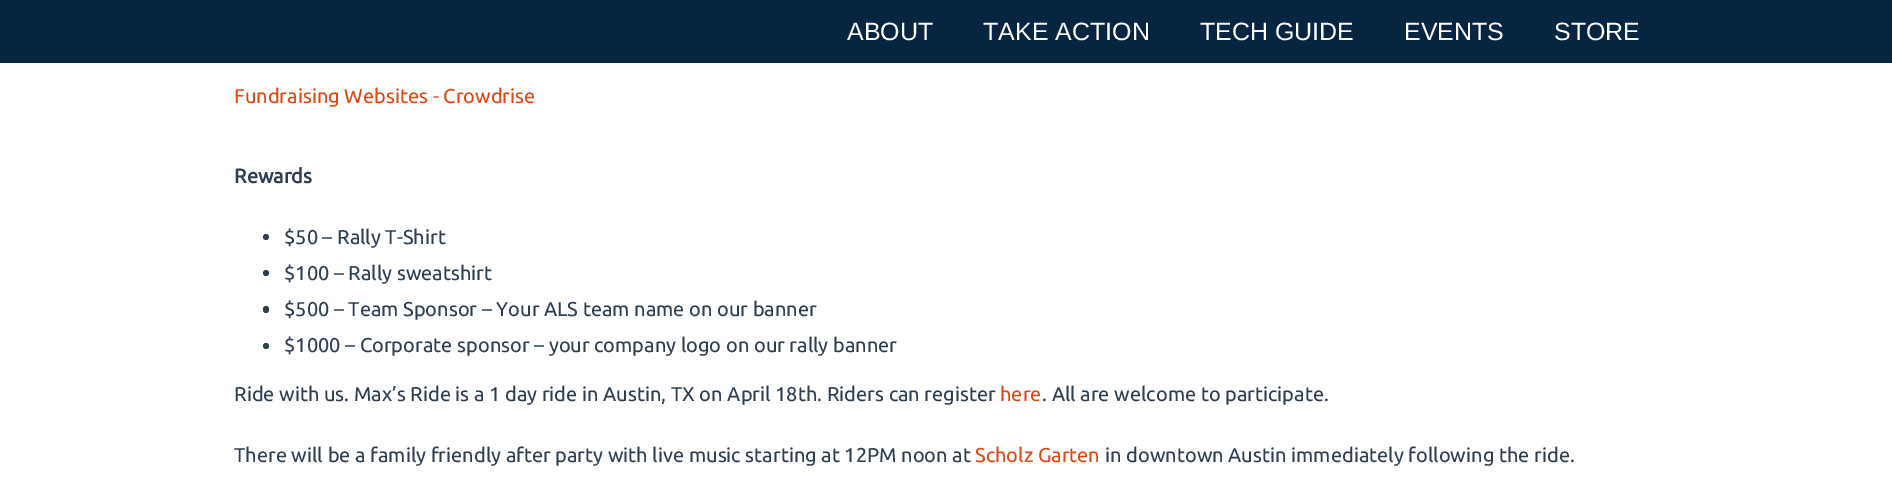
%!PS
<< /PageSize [1892 493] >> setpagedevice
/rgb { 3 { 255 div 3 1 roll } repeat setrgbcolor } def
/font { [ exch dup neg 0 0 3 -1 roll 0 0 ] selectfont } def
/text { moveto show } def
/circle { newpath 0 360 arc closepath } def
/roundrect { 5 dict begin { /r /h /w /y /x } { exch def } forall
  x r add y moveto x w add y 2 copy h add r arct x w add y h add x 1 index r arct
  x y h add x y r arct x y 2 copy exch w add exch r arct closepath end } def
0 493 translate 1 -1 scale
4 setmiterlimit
255 255 255 rgb
0 0 1892 493 rectfill
7 36 64 rgb
0 0 1892 63 rectfill
45 62 80 rgb
266 237 3 circle fill
266 273 3 circle fill
263 306 6 7 3 roundrect fill
266 346 3 circle fill
/LiberationSans-Regular 25 font
255 255 255 rgb
(ABOUT) 847 40 text
(TAKE ACTION) 983 40 text
(TECH GUIDE) 1200 40 text
(EVENTS) 1404 40 text
(STORE) 1554 40 text
/Ubuntu-Regular 20 font
221 72 20 rgb
(Fundraising Websites - Crowdrise) 234 103 text
/Ubuntu-Bold 20 font
45 62 80 rgb
(Rewards) 234 183 text
/Ubuntu-Regular 20 font
($50 – Rally T-Shirt) 284 244 text
($100 – Rally sweatshirt) 284 280 text
($500 – Team Sponsor – Your ALS team name on our banner) 284 316 text
($1000 – Corporate sponsor – your company logo on our rally banner) 284 352 text
(Ride with us. Max’s Ride is a 1 day ride in Austin, TX on April 18th. Riders can register) 234 401 text
221 72 20 rgb
(here) 1000 401 text
45 62 80 rgb
(. All are welcome to participate.) 1042 401 text
(There will be a family friendly after party with live music starting at 12PM noon at) 234 462 text
221 72 20 rgb
(Scholz Garten) 975 462 text
45 62 80 rgb
(in downtown Austin immediately following the ride.) 1105 462 text
showpage
